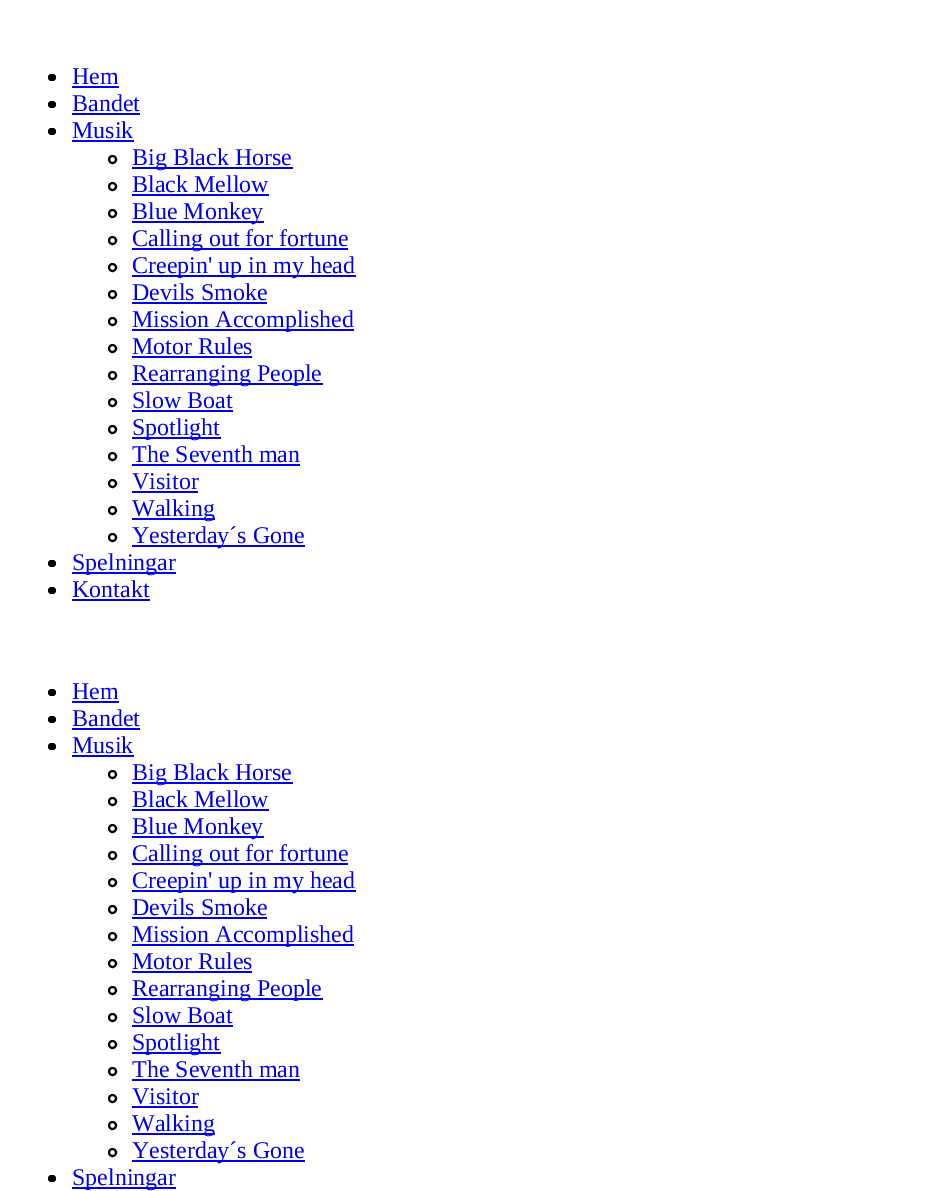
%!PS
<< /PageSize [948 1191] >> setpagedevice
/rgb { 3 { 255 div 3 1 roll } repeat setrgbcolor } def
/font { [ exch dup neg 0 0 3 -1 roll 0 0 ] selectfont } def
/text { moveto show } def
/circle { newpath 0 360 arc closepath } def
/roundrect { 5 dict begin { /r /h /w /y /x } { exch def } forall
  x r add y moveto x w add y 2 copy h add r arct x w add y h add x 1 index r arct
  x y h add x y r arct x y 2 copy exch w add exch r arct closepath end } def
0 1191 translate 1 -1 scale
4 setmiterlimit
255 255 255 rgb
0 0 948 1191 rectfill
0 0 0 rgb
48 74 8 7 3.5 roundrect fill
0 0 238 rgb
72 86 47 2 rectfill
0 0 0 rgb
48 101 8 7 3.5 roundrect fill
0 0 238 rgb
72 113 68 2 rectfill
0 0 0 rgb
48 128 8 7 3.5 roundrect fill
0 0 238 rgb
72 140 62 2 rectfill
0 0 0 rgb
2 setlinewidth
112.5 159.5 3.5 circle stroke
0 0 238 rgb
132 167 161 2 rectfill
0 0 0 rgb
112.5 186.5 3.5 circle stroke
0 0 238 rgb
132 194 137 2 rectfill
0 0 0 rgb
112.5 213.5 3.5 circle stroke
0 0 238 rgb
132 221 132 2 rectfill
0 0 0 rgb
112.5 240.5 3.5 circle stroke
0 0 238 rgb
132 248 216 2 rectfill
0 0 0 rgb
112.5 267.5 3.5 circle stroke
0 0 238 rgb
132 275 224 2 rectfill
0 0 0 rgb
112.5 294.5 3.5 circle stroke
0 0 238 rgb
132 302 135 2 rectfill
0 0 0 rgb
112.5 321.5 3.5 circle stroke
0 0 238 rgb
132 329 222 2 rectfill
0 0 0 rgb
112.5 348.5 3.5 circle stroke
0 0 238 rgb
132 356 120 2 rectfill
0 0 0 rgb
112.5 375.5 3.5 circle stroke
0 0 238 rgb
132 383 191 2 rectfill
0 0 0 rgb
112.5 402.5 3.5 circle stroke
0 0 238 rgb
132 410 101 2 rectfill
0 0 0 rgb
112.5 429.5 3.5 circle stroke
0 0 238 rgb
132 437 89 2 rectfill
0 0 0 rgb
112.5 456.5 3.5 circle stroke
0 0 238 rgb
132 464 168 2 rectfill
0 0 0 rgb
112.5 483.5 3.5 circle stroke
0 0 238 rgb
132 491 66 2 rectfill
0 0 0 rgb
112.5 510.5 3.5 circle stroke
0 0 238 rgb
132 518 83 2 rectfill
0 0 0 rgb
112.5 537.5 3.5 circle stroke
0 0 238 rgb
132 545 173 2 rectfill
0 0 0 rgb
48 560 8 7 3.5 roundrect fill
0 0 238 rgb
72 572 104 2 rectfill
0 0 0 rgb
48 587 8 7 3.5 roundrect fill
0 0 238 rgb
72 599 78 2 rectfill
0 0 0 rgb
48 689 8 7 3.5 roundrect fill
0 0 238 rgb
72 701 47 2 rectfill
0 0 0 rgb
48 716 8 7 3.5 roundrect fill
0 0 238 rgb
72 728 68 2 rectfill
0 0 0 rgb
48 743 8 7 3.5 roundrect fill
0 0 238 rgb
72 755 62 2 rectfill
0 0 0 rgb
112.5 774.5 3.5 circle stroke
0 0 238 rgb
132 782 161 2 rectfill
0 0 0 rgb
112.5 801.5 3.5 circle stroke
0 0 238 rgb
132 809 137 2 rectfill
0 0 0 rgb
112.5 828.5 3.5 circle stroke
0 0 238 rgb
132 836 132 2 rectfill
0 0 0 rgb
112.5 855.5 3.5 circle stroke
0 0 238 rgb
132 863 216 2 rectfill
0 0 0 rgb
112.5 882.5 3.5 circle stroke
0 0 238 rgb
132 890 224 2 rectfill
0 0 0 rgb
112.5 909.5 3.5 circle stroke
0 0 238 rgb
132 917 135 2 rectfill
0 0 0 rgb
112.5 936.5 3.5 circle stroke
0 0 238 rgb
132 944 222 2 rectfill
0 0 0 rgb
112.5 963.5 3.5 circle stroke
0 0 238 rgb
132 971 120 2 rectfill
0 0 0 rgb
112.5 990.5 3.5 circle stroke
0 0 238 rgb
132 998 191 2 rectfill
0 0 0 rgb
112.5 1017.5 3.5 circle stroke
0 0 238 rgb
132 1025 101 2 rectfill
0 0 0 rgb
112.5 1044.5 3.5 circle stroke
0 0 238 rgb
132 1052 89 2 rectfill
0 0 0 rgb
112.5 1071.5 3.5 circle stroke
0 0 238 rgb
132 1079 168 2 rectfill
0 0 0 rgb
112.5 1098.5 3.5 circle stroke
0 0 238 rgb
132 1106 66 2 rectfill
0 0 0 rgb
112.5 1125.5 3.5 circle stroke
0 0 238 rgb
132 1133 83 2 rectfill
0 0 0 rgb
112.5 1152.5 3.5 circle stroke
0 0 238 rgb
132 1160 173 2 rectfill
0 0 0 rgb
48 1175 8 7 3.5 roundrect fill
0 0 238 rgb
72 1187 104 2 rectfill
/LiberationSerif-Regular 24 font
(Hem) 72 84 text
(Bandet) 72 111 text
(Musik) 72 138 text
(Big Black Horse) 132 165 text
(Black Mellow) 132 192 text
(Blue Monkey) 132 219 text
(Calling out for fortune) 132 246 text
(Creepin' up in my head) 132 273 text
(Devils Smoke) 132 300 text
(Mission Accomplished) 132 327 text
(Motor Rules) 132 354 text
(Rearranging People) 132 381 text
(Slow Boat) 132 408 text
(Spotlight) 132 435 text
(The Seventh man) 132 462 text
(Visitor) 132 489 text
(Walking) 132 516 text
(Yesterday´s Gone) 132 543 text
(Spelningar) 72 570 text
(Kontakt) 72 597 text
(Hem) 72 699 text
(Bandet) 72 726 text
(Musik) 72 753 text
(Big Black Horse) 132 780 text
(Black Mellow) 132 807 text
(Blue Monkey) 132 834 text
(Calling out for fortune) 132 861 text
(Creepin' up in my head) 132 888 text
(Devils Smoke) 132 915 text
(Mission Accomplished) 132 942 text
(Motor Rules) 132 969 text
(Rearranging People) 132 996 text
(Slow Boat) 132 1023 text
(Spotlight) 132 1050 text
(The Seventh man) 132 1077 text
(Visitor) 132 1104 text
(Walking) 132 1131 text
(Yesterday´s Gone) 132 1158 text
(Spelningar) 72 1185 text
showpage
